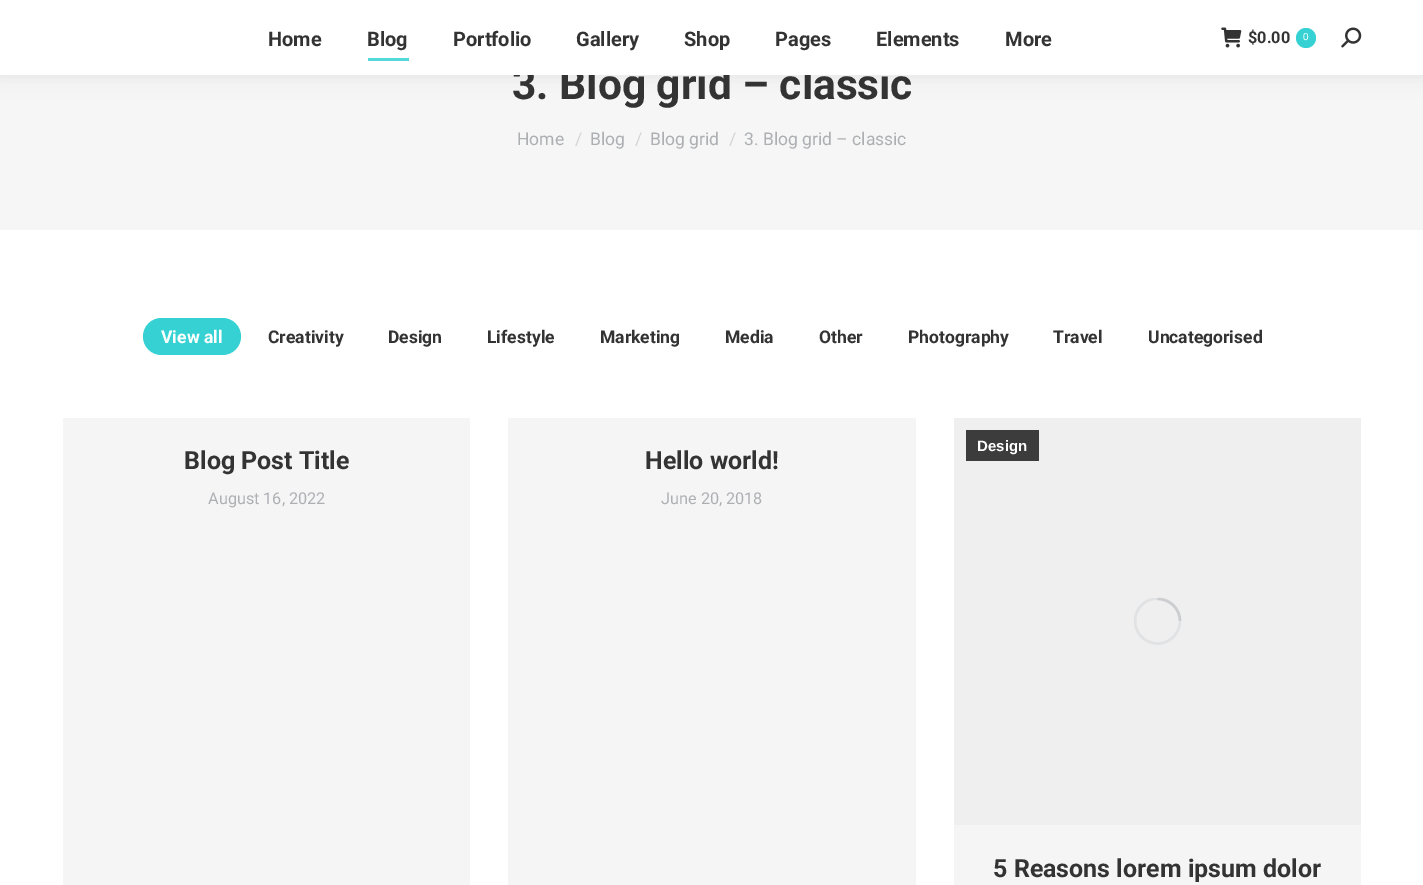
%!PS
<< /PageSize [1423 885] /PageUsesTransparency true >> setpagedevice
/rgb { 3 { 255 div 3 1 roll } repeat setrgbcolor } def
/font { [ exch dup neg 0 0 3 -1 roll 0 0 ] selectfont } def
/text { moveto show } def
/alpha { dup .setfillconstantalpha .setstrokeconstantalpha } def
/circle { newpath 0 360 arc closepath } def
/roundrect { 5 dict begin { /r /h /w /y /x } { exch def } forall
  x r add y moveto x w add y 2 copy h add r arct x w add y h add x 1 index r arct
  x y h add x y r arct x y 2 copy exch w add exch r arct closepath end } def
/shadow { 12 dict begin { /a /b /q /h /w /y /x } { exch def } forall gsave /was 0 def
  9 -2 -9 { dup b mul 4 div /e exch def 1 sub .425 mul 2.718 exch exp 1 add a .99 .min exch div /now exch def
    1 1 now sub 1 was sub div sub alpha /was now def
    w h .min e 2 mul add 0 gt { x e sub y e sub w e 2 mul add h e 2 mul add
      q e add b .6 mul add w h .min 2 div e add .min 0 .max roundrect fill } if } for grestore end } def
/picture { 5 dict begin { /h /w /y /x /name } { exch def } forall
  gsave x y translate w h scale
  w h 8 [w 0 0 h 0 0] name (r) file false 3 colorimage grestore end } def
0 .pushpdf14devicefilter
0 885 translate 1 -1 scale
4 setmiterlimit
255 255 255 rgb
0 0 1423 885 rectfill
246 246 246 rgb
0 75 1423 155 rectfill
0 0 0 rgb
-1 -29 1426 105 0 9.5 0.07 shadow
54 210 211 rgb
143 318 98 37 18.5 roundrect fill
245 245 245 rgb
63 418 407 467 rectfill
508 418 408 467 rectfill
954 825 407 60 rectfill
239 239 240 rgb
954 418 407 407 rectfill
gsave
1134 598 47 47 rectclip
225 226 227 rgb
2.5 setlinewidth
1157.5 621 22.5 circle stroke
grestore
0.25 alpha
139 141 148 rgb
2.5 setlinewidth
1180 621 moveto 0 -12 -10 -22 -22.5 -22 rcurveto stroke
1 alpha
60 60 60 rgb
966 430 73 31 rectfill
/Roboto-Bold 42.5 font
51 51 51 rgb
(3. Blog grid – classic) 512 99 text
255 255 255 rgb
0 0 1423 75 rectfill
(img_02.rgb) 1341 27 21 21 picture
54 210 211 rgb
1306 38 10 circle fill
/LiberationSans-Regular 10 font
255 255 255 rgb
(0) 1303 40 text
/Roboto-Bold 16.25 font
51 51 51 rgb
($0.00) 1248 43 text
(img_01.rgb) 1221 27 21 21 picture
/Roboto-Bold 20 font
(More) 1005 46 text
(Elements) 876 46 text
(Pages) 775 46 text
(Shop) 684 46 text
(Gallery) 576 46 text
(Portfolio) 453 46 text
84 217 218 rgb
368 58 41 3 rectfill
51 51 51 rgb
(Blog) 367 46 text
(Home) 268 46 text
/Roboto-Regular 17.5 font
173 175 179 rgb
(Home) 517 145 text
210 211 213 rgb
(/) 575 145 text
173 175 179 rgb
(Blog) 590 145 text
210 211 213 rgb
(/) 635 145 text
173 175 179 rgb
(Blog grid) 650 145 text
210 211 213 rgb
(/) 729 145 text
173 175 179 rgb
(3. Blog grid – classic) 744 145 text
/Roboto-Bold 17.5 font
255 255 255 rgb
(View all) 161 343 text
51 51 51 rgb
(Creativity) 268 343 text
(Design) 388 343 text
(Lifestyle) 487 343 text
(Marketing) 600 343 text
(Media) 725 343 text
(Other) 819 343 text
(Photography) 908 343 text
(Travel) 1053 343 text
(Uncategorised) 1148 343 text
/Roboto-Bold 25 font
(Blog Post Title) 184 469 text
/Roboto-Regular 16.25 font
173 175 179 rgb
(August 16, 2022) 208 504 text
/Roboto-Bold 25 font
51 51 51 rgb
(Hello world!) 645 469 text
/Roboto-Regular 16.25 font
173 175 179 rgb
(June 20, 2018) 661 504 text
/LiberationSans-Bold 15 font
255 255 255 rgb
(Design) 977 451 text
/Roboto-Bold 25 font
51 51 51 rgb
(5 Reasons lorem ipsum dolor) 993 877 text
.poppdf14devicefilter showpage
